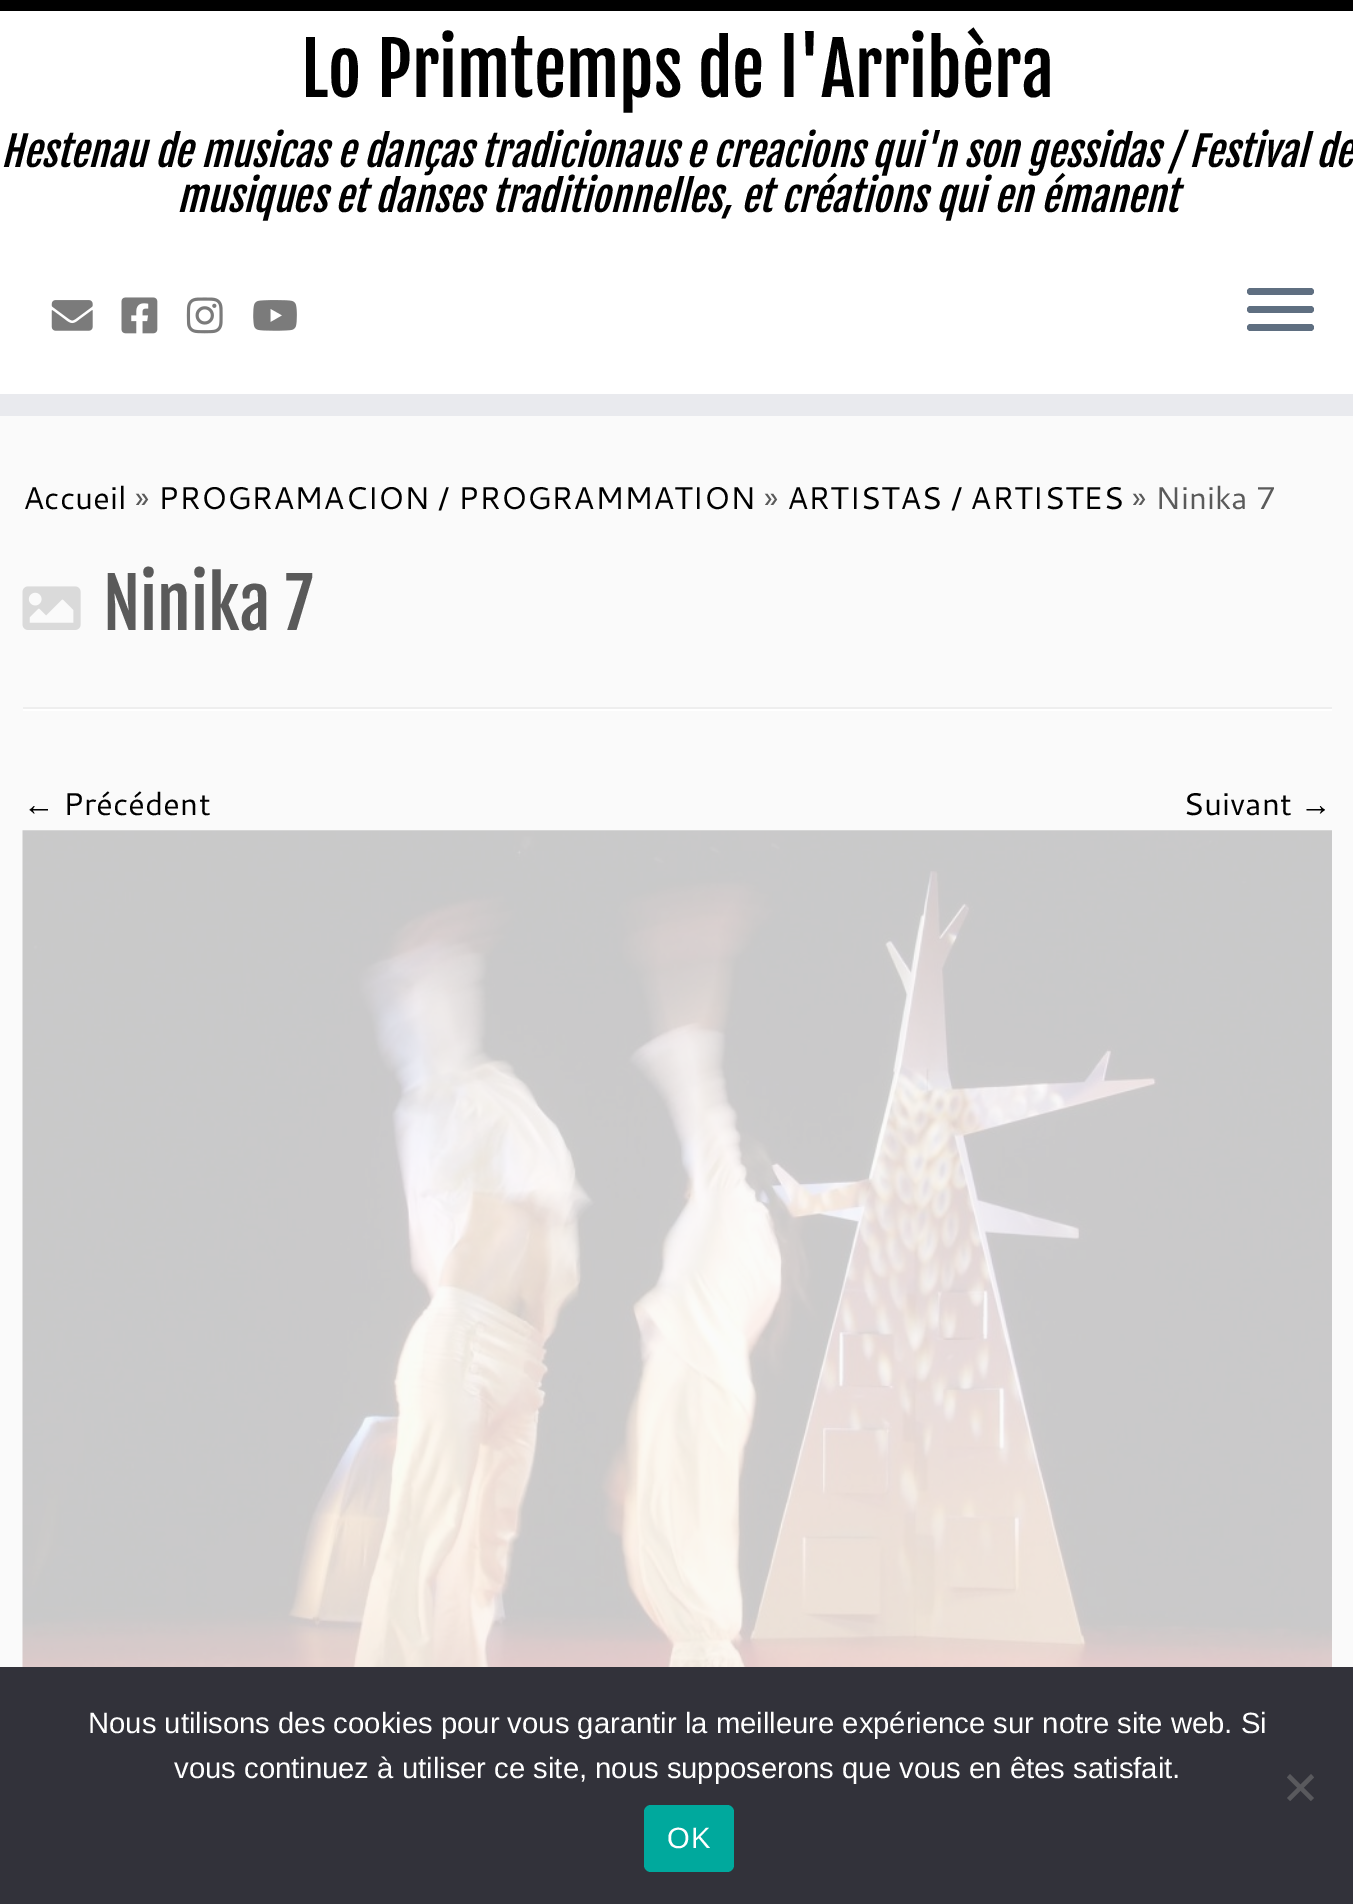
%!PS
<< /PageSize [1353 1904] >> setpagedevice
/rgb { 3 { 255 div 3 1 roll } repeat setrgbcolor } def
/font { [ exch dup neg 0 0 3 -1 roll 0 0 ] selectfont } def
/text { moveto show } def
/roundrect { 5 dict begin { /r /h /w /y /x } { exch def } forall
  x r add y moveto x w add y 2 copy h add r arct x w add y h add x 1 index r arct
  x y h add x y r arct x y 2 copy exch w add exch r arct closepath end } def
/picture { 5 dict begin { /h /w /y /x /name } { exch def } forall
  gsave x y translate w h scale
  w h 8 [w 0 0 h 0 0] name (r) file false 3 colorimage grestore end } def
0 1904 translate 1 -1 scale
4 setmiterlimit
250 250 250 rgb
0 0 1353 1904 rectfill
255 255 255 rgb
0 11 1353 383 rectfill
0 0 0 rgb
0 0 1353 11 rectfill
233 234 238 rgb
0 394 1353 22 rectfill
(img_01.rgb) 51 300 42 31 picture
(img_02.rgb) 121 297 37 37 picture
(img_03.rgb) 186 297 37 37 picture
(img_04.rgb) 253 300 44 31 picture
95 111 129 rgb
1247 288 67 7 3.5 roundrect fill
1247 306 67 7 3.5 roundrect fill
1247 324 67 7 3.5 roundrect fill
(img_05.rgb) 22 586 59 44 picture
238 238 238 rgb
23 707 1309 2 rectfill
255 255 255 rgb
23 709 1309 2 rectfill
(img_06.rgb) 22 830 1310 837 picture
50 50 58 rgb
0 1667 1353 237 rectfill
89 89 93 rgb
1311 1774 moveto 3 3.5 rlineto -24 23.5 rlineto -3 -3 rlineto closepath fill
1287 1777.5 moveto 3 -3.5 rlineto 24 24 rlineto -3 3 rlineto closepath fill
0 169 157 rgb
644 1805 90 67 7 roundrect fill
/FjallaOne-Regular 72 font
0 0 0 rgb
(Lo Primtemps de l'Arribèra) 301 97 text
/FjallaOne-Italic 40.5 font
(Hestenau de musicas e danças tradicionaus e creacions qui'n son gessidas / Festival de) 1 167 text
(musiques et danses traditionnelles, et créations qui en émanent) 177 212 text
/Cantarell-Regular 31.5 font
(Accueil) 23 509 text
90 90 90 rgb
(») 135 509 text
0 0 0 rgb
(PROGRAMACION / PROGRAMMATION) 158 509 text
90 90 90 rgb
(») 764 509 text
0 0 0 rgb
(ARTISTAS / ARTISTES) 787 509 text
90 90 90 rgb
(» Ninika 7) 1132 509 text
/FjallaOne-Regular 68.5 font
(Ninika 7) 103 630 text
/LiberationSerif-Regular 31.5 font
0 0 0 rgb
(←) 23 815 text
/Cantarell-Regular 31.5 font
(Précédent) 63 815 text
(Suivant) 1183 815 text
/LiberationSerif-Regular 31.5 font
(→) 1300 815 text
/LiberationSans-Regular 29.25 font
255 255 255 rgb
(Nous utilisons des cookies pour vous garantir la meilleure expérience sur notre site web. Si) 88 1733 text
(vous continuez à utiliser ce site, nous supposerons que vous en êtes satisfait.) 174 1778 text
667 1848 moveto 1 0 (OK) ashow
showpage
